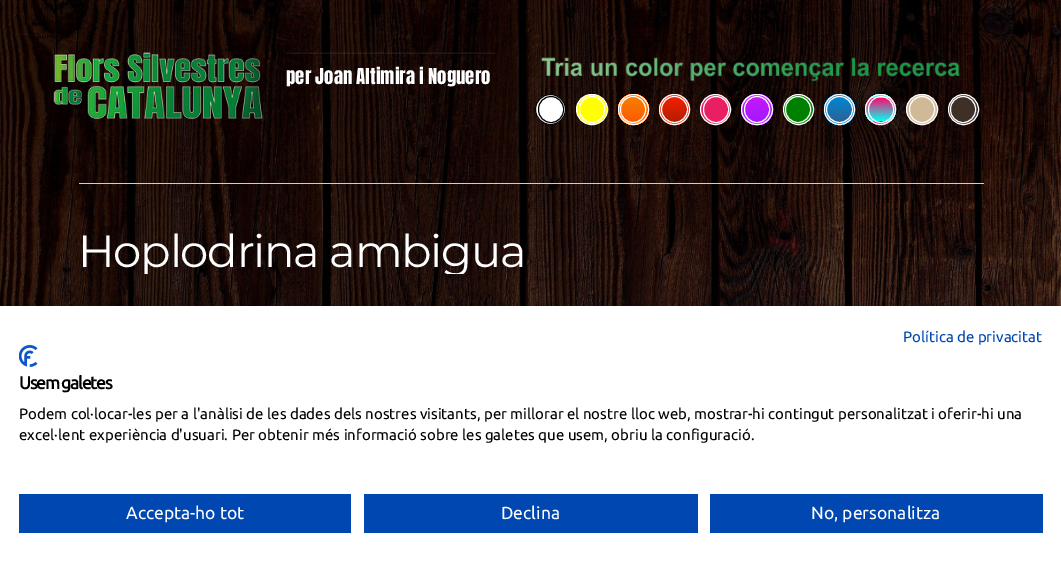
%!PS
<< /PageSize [1061 566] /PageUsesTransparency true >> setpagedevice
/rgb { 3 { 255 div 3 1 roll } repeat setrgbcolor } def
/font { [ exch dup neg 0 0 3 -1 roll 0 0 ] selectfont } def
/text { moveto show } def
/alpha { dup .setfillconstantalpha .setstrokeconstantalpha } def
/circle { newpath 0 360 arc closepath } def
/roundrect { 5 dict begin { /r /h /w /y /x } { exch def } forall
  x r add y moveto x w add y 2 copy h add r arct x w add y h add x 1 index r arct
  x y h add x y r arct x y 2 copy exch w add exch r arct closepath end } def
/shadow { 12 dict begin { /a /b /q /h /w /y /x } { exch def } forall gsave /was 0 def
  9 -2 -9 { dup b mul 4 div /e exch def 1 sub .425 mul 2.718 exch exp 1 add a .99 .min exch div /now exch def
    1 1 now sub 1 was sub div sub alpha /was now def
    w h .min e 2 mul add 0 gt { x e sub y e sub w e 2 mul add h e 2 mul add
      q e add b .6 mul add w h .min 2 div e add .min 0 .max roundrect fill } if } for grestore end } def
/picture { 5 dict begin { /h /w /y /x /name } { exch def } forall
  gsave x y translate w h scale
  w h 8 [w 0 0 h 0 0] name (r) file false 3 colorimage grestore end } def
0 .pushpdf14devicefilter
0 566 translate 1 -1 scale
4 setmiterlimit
255 255 255 rgb
0 0 1061 566 rectfill
(img_01.rgb) 0 0 1061 306 picture
217 202 198 rgb
79 183 905 1 rectfill
(img_02.rgb) 53 52 210 68 picture
(img_03.rgb) 286 52 209 2 picture
(img_04.rgb) 541 57 419 25 picture
255 255 255 rgb
550.5 109.5 15 circle gsave fill grestore
0 0 0 rgb
stroke
538.5 96.5 25 26 12.5 roundrect stroke
255 255 0 rgb
576.5 94.5 31 30 15 roundrect gsave fill grestore
255 255 255 rgb
stroke
579.5 96.5 25 26 12.5 roundrect stroke
gsave
618 94 31 31 15.5 roundrect clip newpath
gsave 618 94 moveto 31 0 rlineto 0 4 rlineto -31 0 rlineto closepath clip newpath
<< /ShadingType 2 /ColorSpace /DeviceRGB /Coords [633 74 633 98] /Extend [true true] /Function << /FunctionType 2 /Domain [0 1] /C0 [0.965 0.494 0] /C1 [1 0.353 0] /N 1 >> >> shfill grestore
gsave 618 98 moveto 31 0 rlineto 0 23 rlineto -31 0 rlineto closepath clip newpath
<< /ShadingType 2 /ColorSpace /DeviceRGB /Coords [633 98 633 121] /Extend [true true] /Function << /FunctionType 2 /Domain [0 1] /C0 [0.965 0.494 0] /C1 [1 0.353 0] /N 1 >> >> shfill grestore
gsave 618 121 moveto 31 0 rlineto 0 4 rlineto -31 0 rlineto closepath clip newpath
<< /ShadingType 2 /ColorSpace /DeviceRGB /Coords [633 121 633 145] /Extend [true true] /Function << /FunctionType 2 /Domain [0 1] /C0 [0.965 0.494 0] /C1 [1 0.353 0] /N 1 >> >> shfill grestore
grestore
633.5 109.5 15 circle stroke
620.5 96.5 25 26 12.5 roundrect stroke
gsave
659 94 31 31 15.5 roundrect clip newpath
gsave 659 94 moveto 31 0 rlineto 0 4 rlineto -31 0 rlineto closepath clip newpath
<< /ShadingType 2 /ColorSpace /DeviceRGB /Coords [674 74 674 98] /Extend [true true] /Function << /FunctionType 2 /Domain [0 1] /C0 [0.957 0.118 0] /C1 [0.706 0.118 0] /N 1 >> >> shfill grestore
gsave 659 98 moveto 31 0 rlineto 0 23 rlineto -31 0 rlineto closepath clip newpath
<< /ShadingType 2 /ColorSpace /DeviceRGB /Coords [674 98 674 121] /Extend [true true] /Function << /FunctionType 2 /Domain [0 1] /C0 [0.957 0.118 0] /C1 [0.706 0.118 0] /N 1 >> >> shfill grestore
gsave 659 121 moveto 31 0 rlineto 0 4 rlineto -31 0 rlineto closepath clip newpath
<< /ShadingType 2 /ColorSpace /DeviceRGB /Coords [674 121 674 145] /Extend [true true] /Function << /FunctionType 2 /Domain [0 1] /C0 [0.957 0.118 0] /C1 [0.706 0.118 0] /N 1 >> >> shfill grestore
grestore
674.5 109.5 15 circle stroke
674.5 109.5 13 circle stroke
233 30 99 rgb
715.5 109.5 15 circle gsave fill grestore
255 255 255 rgb
stroke
703.5 96.5 25 26 12.5 roundrect stroke
gsave
741 94 32 31 15.5 roundrect clip newpath
gsave 741 94 moveto 32 0 rlineto 0 4 rlineto -32 0 rlineto closepath clip newpath
<< /ShadingType 2 /ColorSpace /DeviceRGB /Coords [757 74 757 98] /Extend [true true] /Function << /FunctionType 2 /Domain [0 1] /C0 [0.769 0.094 0.98] /C1 [0.643 0.094 1] /N 1 >> >> shfill grestore
gsave 741 98 moveto 32 0 rlineto 0 23 rlineto -32 0 rlineto closepath clip newpath
<< /ShadingType 2 /ColorSpace /DeviceRGB /Coords [757 98 757 121] /Extend [true true] /Function << /FunctionType 2 /Domain [0 1] /C0 [0.769 0.094 0.98] /C1 [0.643 0.094 1] /N 1 >> >> shfill grestore
gsave 741 121 moveto 32 0 rlineto 0 4 rlineto -32 0 rlineto closepath clip newpath
<< /ShadingType 2 /ColorSpace /DeviceRGB /Coords [757 121 757 145] /Extend [true true] /Function << /FunctionType 2 /Domain [0 1] /C0 [0.769 0.094 0.98] /C1 [0.643 0.094 1] /N 1 >> >> shfill grestore
grestore
741.5 94.5 31 30 15 roundrect stroke
744.5 96.5 25 26 12.5 roundrect stroke
0 128 0 rgb
798.5 109.5 15 circle gsave fill grestore
255 255 255 rgb
stroke
785.5 96.5 25 26 12.5 roundrect stroke
gsave
824 94 31 31 15.5 roundrect clip newpath
gsave 824 94 moveto 31 0 rlineto 0 4 rlineto -31 0 rlineto closepath clip newpath
<< /ShadingType 2 /ColorSpace /DeviceRGB /Coords [839 74 839 98] /Extend [true true] /Function << /FunctionType 2 /Domain [0 1] /C0 [0.008 0.518 0.82] /C1 [0.165 0.392 0.588] /N 1 >> >> shfill grestore
gsave 824 98 moveto 31 0 rlineto 0 23 rlineto -31 0 rlineto closepath clip newpath
<< /ShadingType 2 /ColorSpace /DeviceRGB /Coords [839 98 839 121] /Extend [true true] /Function << /FunctionType 2 /Domain [0 1] /C0 [0.008 0.518 0.82] /C1 [0.165 0.392 0.588] /N 1 >> >> shfill grestore
gsave 824 121 moveto 31 0 rlineto 0 4 rlineto -31 0 rlineto closepath clip newpath
<< /ShadingType 2 /ColorSpace /DeviceRGB /Coords [839 121 839 145] /Extend [true true] /Function << /FunctionType 2 /Domain [0 1] /C0 [0.008 0.518 0.82] /C1 [0.165 0.392 0.588] /N 1 >> >> shfill grestore
grestore
839.5 109.5 15 circle stroke
839.5 109.5 13 circle stroke
gsave
865 94 31 31 15.5 roundrect clip newpath
gsave 865 94 moveto 31 0 rlineto 0 4 rlineto -31 0 rlineto closepath clip newpath
<< /ShadingType 2 /ColorSpace /DeviceRGB /Coords [881 74 881 98] /Extend [true true] /Function << /FunctionType 2 /Domain [0 1] /C0 [1 0.039 0.443] /C1 [0.012 1 0.941] /N 1 >> >> shfill grestore
gsave 865 98 moveto 31 0 rlineto 0 23 rlineto -31 0 rlineto closepath clip newpath
<< /ShadingType 2 /ColorSpace /DeviceRGB /Coords [881 98 881 121] /Extend [true true] /Function << /FunctionType 2 /Domain [0 1] /C0 [1 0.039 0.443] /C1 [0.012 1 0.941] /N 1 >> >> shfill grestore
gsave 865 121 moveto 31 0 rlineto 0 4 rlineto -31 0 rlineto closepath clip newpath
<< /ShadingType 2 /ColorSpace /DeviceRGB /Coords [881 121 881 145] /Extend [true true] /Function << /FunctionType 2 /Domain [0 1] /C0 [1 0.039 0.443] /C1 [0.012 1 0.941] /N 1 >> >> shfill grestore
grestore
880.5 109.5 15 circle stroke
868.5 96.5 25 26 12.5 roundrect stroke
207 185 151 rgb
906.5 94.5 31 30 15 roundrect gsave fill grestore
255 255 255 rgb
stroke
909.5 96.5 25 26 12.5 roundrect stroke
62 47 39 rgb
963.5 109.5 15 circle gsave fill grestore
255 255 255 rgb
stroke
950.5 96.5 25 26 12.5 roundrect stroke
0 0 0 rgb
0 306 1061 260 0 15 0.1 shadow
255 255 255 rgb
0 306 1061 260 rectfill
(img_05.rgb) 19 345 19 22 picture
0 71 178 rgb
19 494 332 39 rectfill
364 494 334 39 rectfill
710 494 333 39 rectfill
/Anton-Regular 18.75 font
255 255 255 rgb
(per Joan Altimira i Noguero) 286 84 text
gsave
79 229 905 45 rectclip
/Montserrat-Thin 45 font
78 267 moveto -1.25 0 (Hoplodrina ambigua) ashow
grestore
/Ubuntu-Regular 15 font
0 71 178 rgb
(Política de privacitat) 903 342 text
/Ubuntu-Bold 17.5 font
0 0 0 rgb
19 389 moveto -1.25 0 (Usem galetes) ashow
/Ubuntu-Regular 15 font
(Podem col·locar-les per a l'anàlisi de les dades dels nostres visitants, per millorar el nostre lloc web, mostrar-hi contingut personalitzat i oferir-hi una) 19 419 text
(excel·lent experiència d'usuari. Per obtenir més informació sobre les galetes que usem, obriu la configuració.) 19 440 text
/Ubuntu-Regular 17.5 font
255 255 255 rgb
(Accepta-ho tot) 126 519 text
(Declina) 501 519 text
(No, personalitza) 811 519 text
.poppdf14devicefilter showpage
